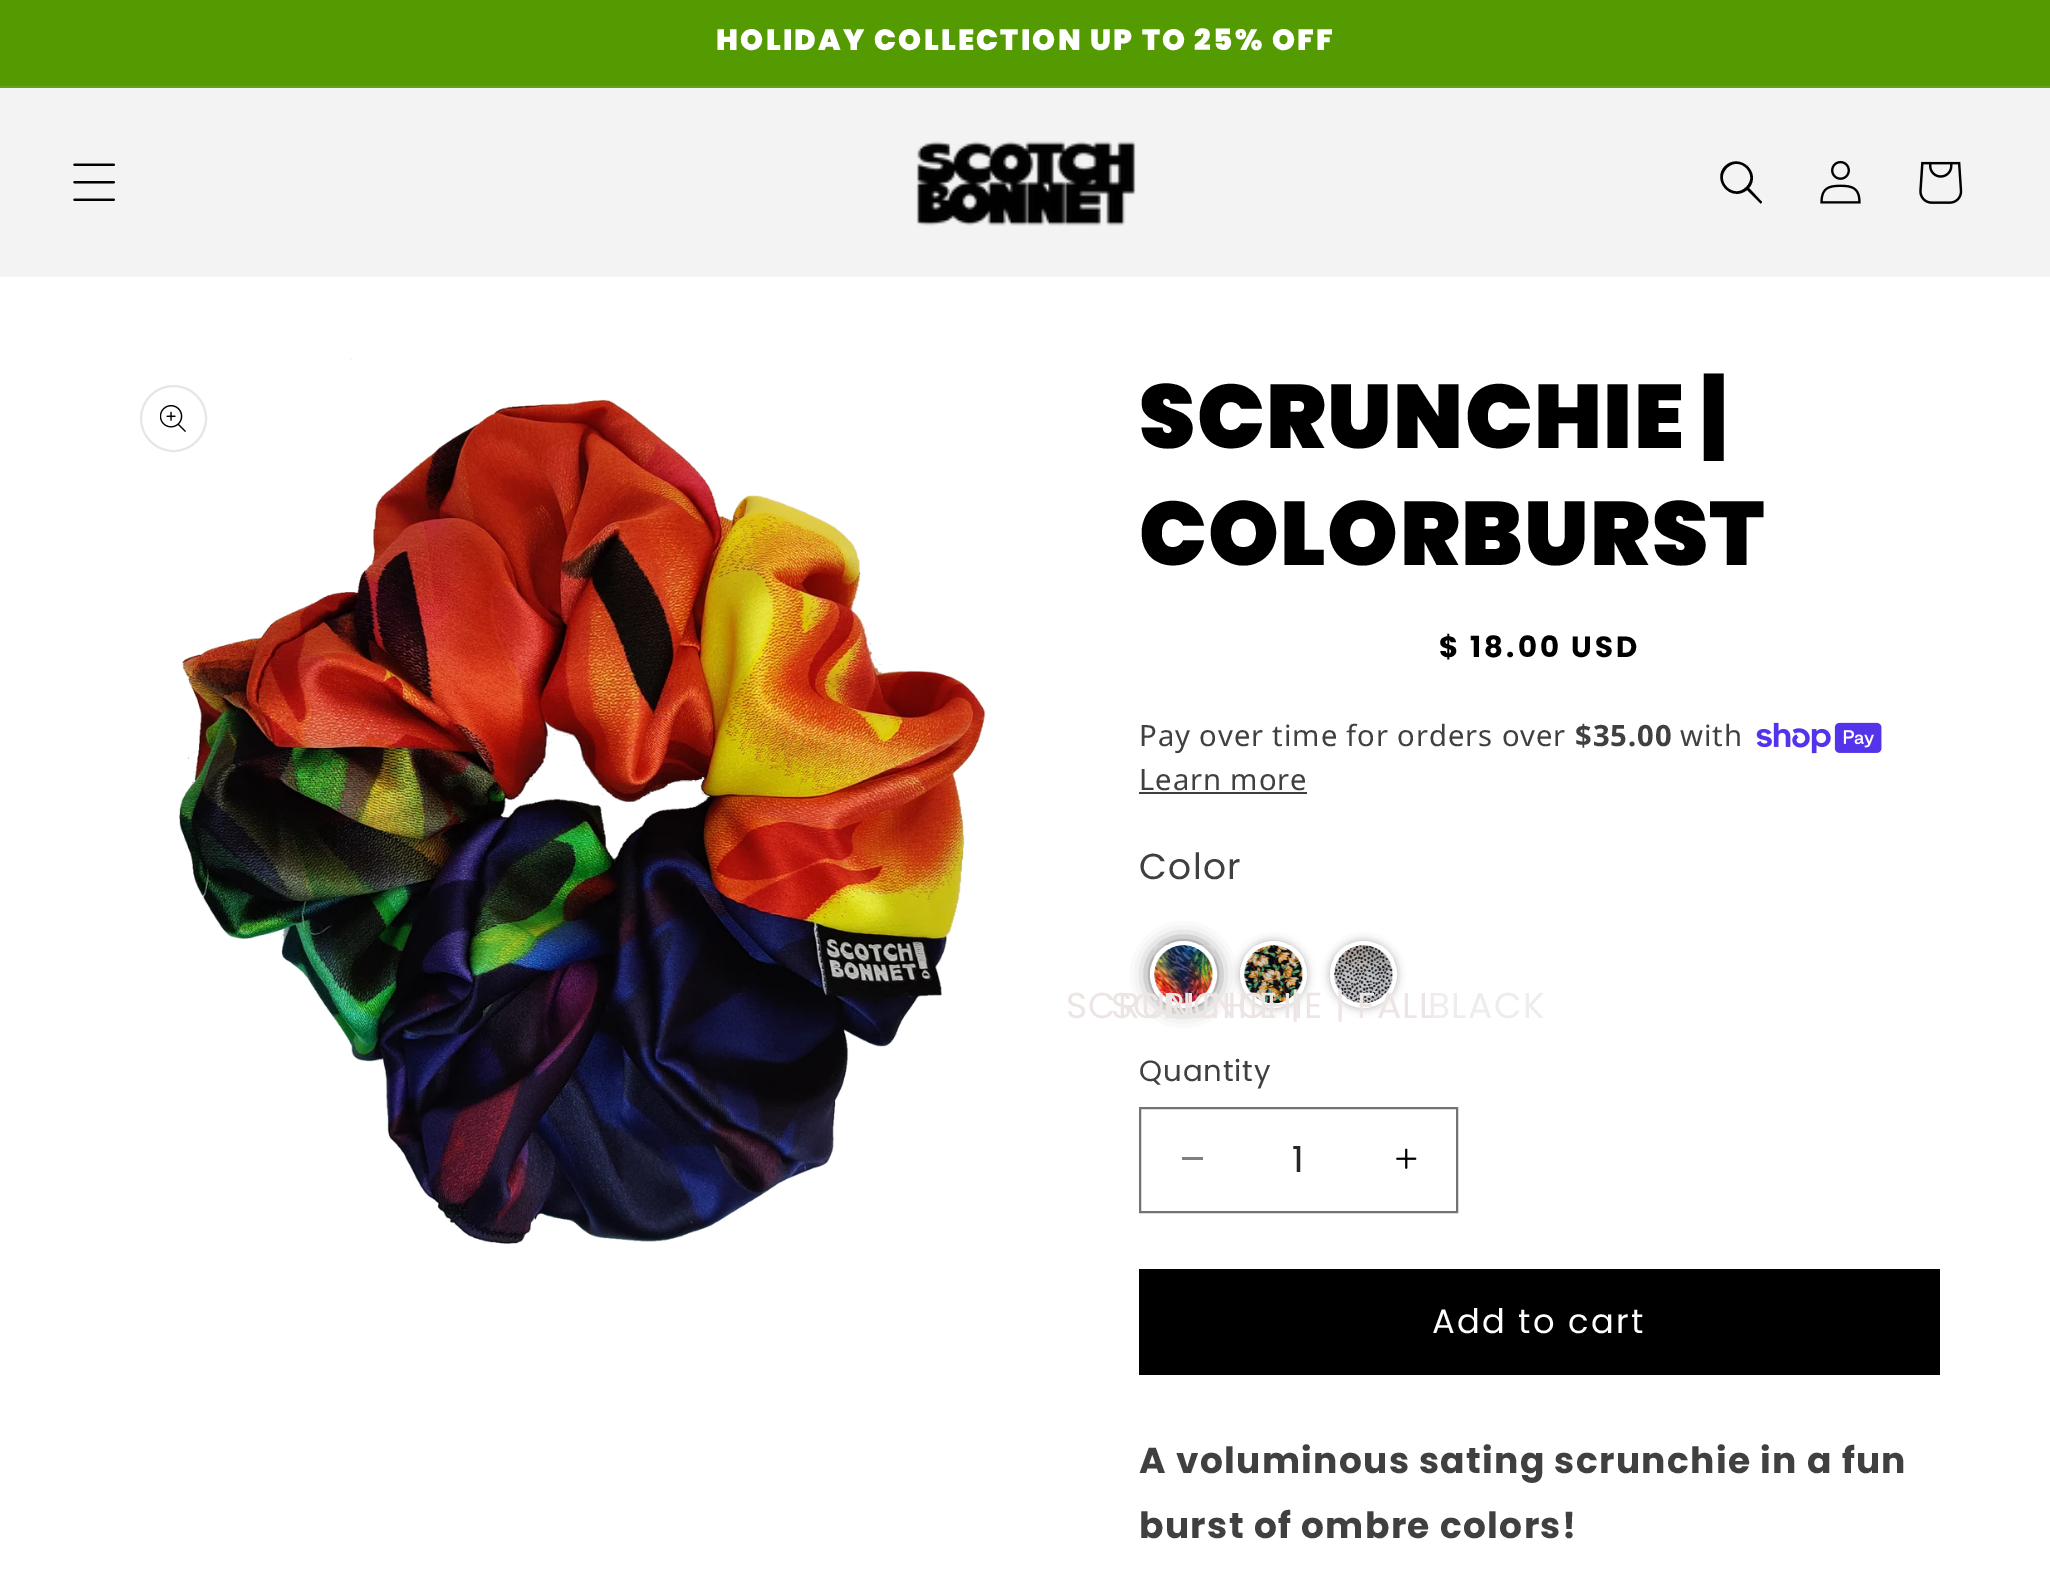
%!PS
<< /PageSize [2050 1572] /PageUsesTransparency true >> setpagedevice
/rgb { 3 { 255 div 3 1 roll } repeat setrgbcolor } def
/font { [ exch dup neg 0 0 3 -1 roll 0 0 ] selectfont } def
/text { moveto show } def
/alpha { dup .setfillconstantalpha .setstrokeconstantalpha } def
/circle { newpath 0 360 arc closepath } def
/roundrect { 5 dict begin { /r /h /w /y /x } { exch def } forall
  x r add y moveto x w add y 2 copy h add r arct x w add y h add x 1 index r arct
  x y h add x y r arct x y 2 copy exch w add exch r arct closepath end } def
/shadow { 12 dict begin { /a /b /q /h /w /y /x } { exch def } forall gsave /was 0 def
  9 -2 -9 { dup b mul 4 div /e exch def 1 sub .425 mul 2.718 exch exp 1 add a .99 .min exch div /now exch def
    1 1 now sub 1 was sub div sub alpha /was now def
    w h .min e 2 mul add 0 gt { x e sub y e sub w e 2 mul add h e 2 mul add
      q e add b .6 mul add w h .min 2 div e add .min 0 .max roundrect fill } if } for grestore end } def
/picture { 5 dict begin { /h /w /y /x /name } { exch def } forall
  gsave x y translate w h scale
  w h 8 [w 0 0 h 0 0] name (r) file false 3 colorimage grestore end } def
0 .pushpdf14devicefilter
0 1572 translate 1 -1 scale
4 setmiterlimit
255 255 255 rgb
0 0 2050 1572 rectfill
84 154 1 rgb
0 0 2050 86 rectfill
98 162 21 rgb
0 86 2050 2 rectfill
243 243 243 rgb
0 88 2050 189 rectfill
(img_01.rgb) 73 163 42 38 picture
(img_02.rgb) 916 141 220 85 picture
0 0 0 rgb
1746 187 moveto -12 13 -32 -6 -19 -19 rcurveto 13 -13 32 7 19 19 rcurveto 1747 190 moveto -16 13 -36 -10 -22 -24 rcurveto 15 -14 37 7 24 22 rcurveto 13 14 rlineto 0 1 -2 2 -2 1 rcurveto closepath eofill
(img_03.rgb) 1820 160 41 44 picture
(img_04.rgb) 1919 161 44 43 picture
(img_06.rgb) 179 358 807 886 picture
230 230 230 rgb
2 setlinewidth
173.5 418.5 32.5 circle stroke
(img_05.rgb) 160 404 26 28 picture
(img_07.rgb) 1756 722 126 32 picture
64 64 64 rgb
1139 792 168 2 rectfill
0 0 0 rgb
1150 941 67 67 33.5 9 0.6 shadow
255 255 255 rgb
5 setlinewidth
1183.5 974.5 31 circle stroke
(img_08.rgb) 1154 945 60 59 picture
0 0 0 rgb
1240 941 67 67 33.5 4.5 0.3 shadow
255 255 255 rgb
1273.5 974.5 31 circle stroke
(img_09.rgb) 1244 945 60 59 picture
0 0 0 rgb
1330 941 67 67 33.5 4.5 0.3 shadow
255 255 255 rgb
1363.5 974.5 31 circle stroke
(img_10.rgb) 1334 945 60 59 picture
128 128 128 rgb
1182 1157 21 3 rectfill
(img_11.rgb) 1396 1148 21 21 picture
115 115 115 rgb
2 setlinewidth
1140 1108 317 104 rectstroke
0 0 0 rgb
1139 1269 801 106 rectfill
/Poppins-Black 29.25 font
255 255 255 rgb
716 50 moveto 2.25 0 (HOLIDAY COLLECTION UP TO 25% OFF) ashow
/Poppins-Black 90 font
0 0 0 rgb
1139 448 moveto 1.35 0 (SCRUNCHIE |) ashow
1139 565 moveto 1.35 0 (COLORBURST) ashow
/Poppins-Bold 29.25 font
1439 657 moveto 3 0 ($ 18.00 USD) ashow
/NotoSans-Regular 29.25 font
64 64 64 rgb
1139 746 moveto 0.9 0 (Pay over time for orders over) ashow
/NotoSans-Bold 29.25 font
1575 746 moveto 0.9 0 ($35.00) ashow
/NotoSans-Regular 29.25 font
1680 746 moveto 0.9 0 (with) ashow
1139 790 moveto 0.9 0 (Learn more) ashow
/Poppins-Regular 36 font
1139 879 moveto 1.35 0 (Color) ashow
236 229 228 rgb
1066 1018 moveto 1.35 0 (SCRUNCHIE |) ashow
1111 1018 moveto 1.35 0 (SCRUNCHIE | FALL) ashow
239 236 236 rgb
1428 1018 moveto 1.35 0 (BLACK) ashow
/Poppins-Regular 29.25 font
64 64 64 rgb
1139 1081 moveto 0.9 0 (Quantity) ashow
/Poppins-Regular 36 font
38 38 38 rgb
(1) 1292 1172 text
/Poppins-Regular 33.75 font
255 255 255 rgb
1432 1333 moveto 2.25 0 (Add to cart) ashow
/Poppins-Bold 36 font
64 64 64 rgb
1139 1473 moveto 1.35 0 (A voluminous sating scrunchie in a fun) ashow
1139 1538 moveto 1.35 0 (burst of ombre colors!) ashow
.poppdf14devicefilter showpage
